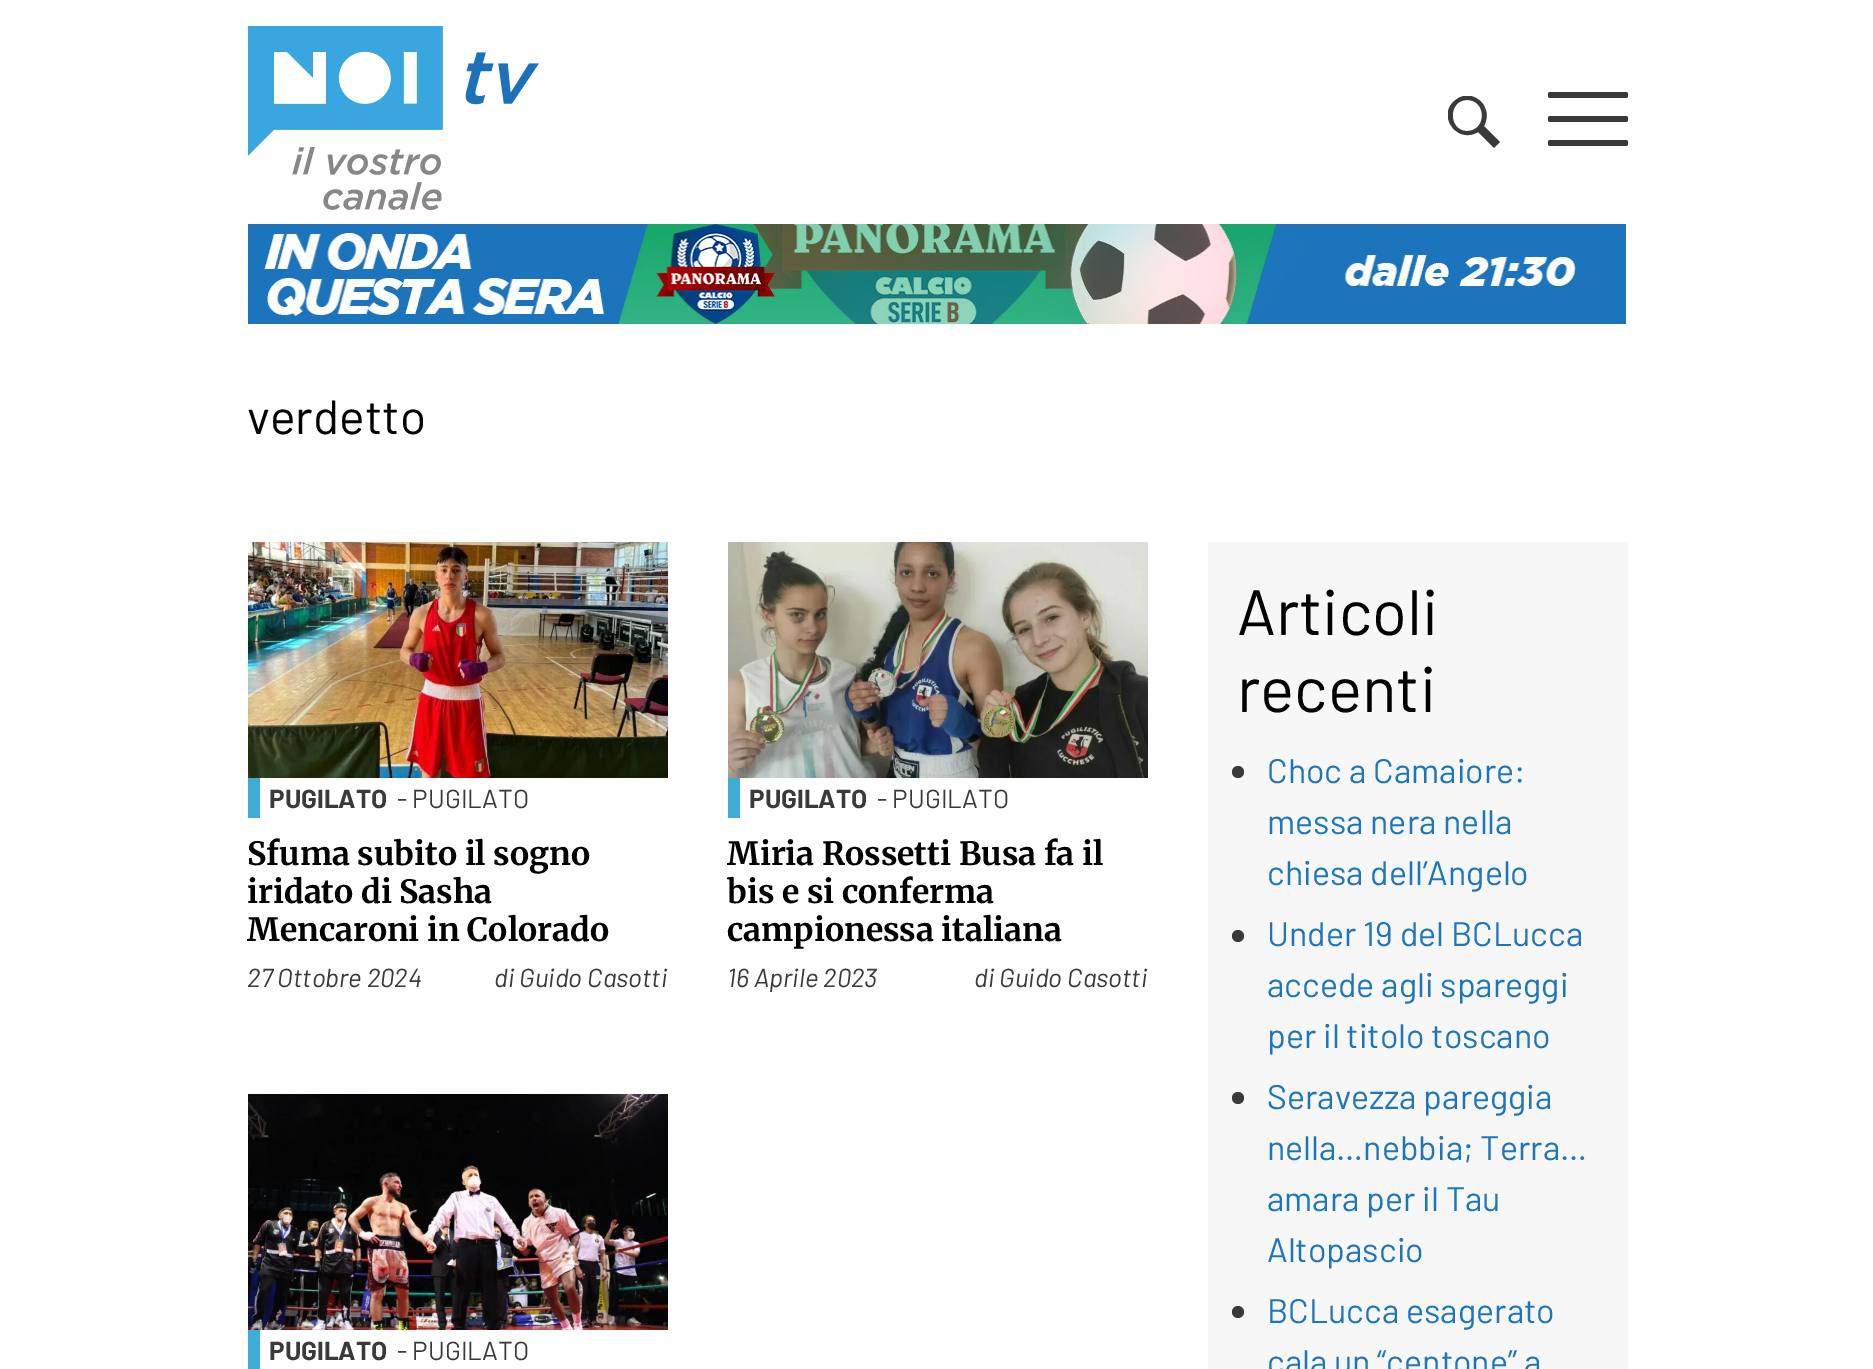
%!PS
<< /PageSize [1873 1369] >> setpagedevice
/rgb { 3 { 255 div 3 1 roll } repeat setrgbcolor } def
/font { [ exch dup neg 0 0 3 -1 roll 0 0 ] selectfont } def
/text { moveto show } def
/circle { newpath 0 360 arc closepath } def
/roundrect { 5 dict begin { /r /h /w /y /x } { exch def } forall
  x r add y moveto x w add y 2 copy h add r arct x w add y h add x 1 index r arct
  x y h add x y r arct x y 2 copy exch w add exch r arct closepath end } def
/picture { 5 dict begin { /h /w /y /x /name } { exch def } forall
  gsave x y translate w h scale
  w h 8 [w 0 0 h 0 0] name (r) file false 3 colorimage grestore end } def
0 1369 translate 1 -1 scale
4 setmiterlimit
255 255 255 rgb
0 0 1873 1369 rectfill
(img_01.rgb) 248 26 291 184 picture
gsave
1448 96 52 52 rectclip
59 58 58 rgb
1494 148 moveto -16 -16 rlineto -22 13 -43 -19 -21 -33 rcurveto 4 -3 9 -4 14 -3 rcurveto 7 2 12 6 14 12 rcurveto 3 6 2 12 -1 18 rcurveto 16 16 rlineto closepath 1467 131 moveto 20 0 20 -31 0 -31 rcurveto -19 0 -19 31 0 31 rcurveto closepath fill
grestore
58 58 58 rgb
1548 116 80 6 2 roundrect fill
1548 92 80 6 2 roundrect fill
1548 140 80 6 2 roundrect fill
(img_02.rgb) 248 224 1378 100 picture
(img_03.rgb) 248 542 420 236 picture
63 172 214 rgb
248 778 12 40 rectfill
(img_04.rgb) 728 542 420 236 picture
728 778 12 40 rectfill
(img_05.rgb) 248 1094 420 236 picture
248 1330 12 39 rectfill
247 247 247 rgb
1208 542 420 827 rectfill
58 58 58 rgb
1238 772 6 circle fill
1238 936 6 circle fill
1238 1098 6 circle fill
1238 1312 6 circle fill
/Barlow-Regular 48 font
0 0 0 rgb
(verdetto) 247 434 text
/Barlow-Bold 26 font
58 58 58 rgb
(PUGILATO) 269 808 text
/Barlow-Regular 26 font
(- PUGILATO) 397 808 text
/Merriweather-Light 32 font
0 0 0 rgb
(Sfuma subito il sogno) 247 865 text
(iridato di Sasha) 247 903 text
(Mencaroni in Colorado) 247 941 text
/Barlow-Italic 26 font
58 58 58 rgb
(27 Ottobre 2024) 247 987 text
(di Guido Casotti) 494 987 text
/Barlow-Bold 26 font
(PUGILATO) 749 808 text
/Barlow-Regular 26 font
(- PUGILATO) 877 808 text
/Merriweather-Light 32 font
0 0 0 rgb
(Miria Rossetti Busa fa il) 727 865 text
(bis e si conferma) 727 903 text
(campionessa italiana) 727 941 text
/Barlow-Italic 26 font
58 58 58 rgb
(16 Aprile 2023) 727 987 text
(di Guido Casotti) 974 987 text
/Barlow-Bold 26 font
(PUGILATO) 269 1360 text
/Barlow-Regular 26 font
(- PUGILATO) 397 1360 text
/Barlow-Regular 64 font
0 0 0 rgb
(Articoli) 1237 635 text
(recenti) 1237 712 text
/Barlow-Regular 34 font
29 117 187 rgb
(Choc a Camaiore:) 1267 783 text
(messa nera nella) 1267 834 text
(chiesa dell’Angelo) 1267 885 text
(Under 19 del BCLucca) 1267 946 text
(accede agli spareggi) 1267 997 text
(per il titolo toscano) 1267 1048 text
(Seravezza pareggia) 1267 1109 text
(nella…nebbia; Terra…) 1267 1160 text
(amara per il Tau) 1267 1211 text
(Altopascio) 1267 1262 text
(BCLucca esagerato) 1267 1323 text
(cala un “centone” a) 1267 1374 text
showpage
